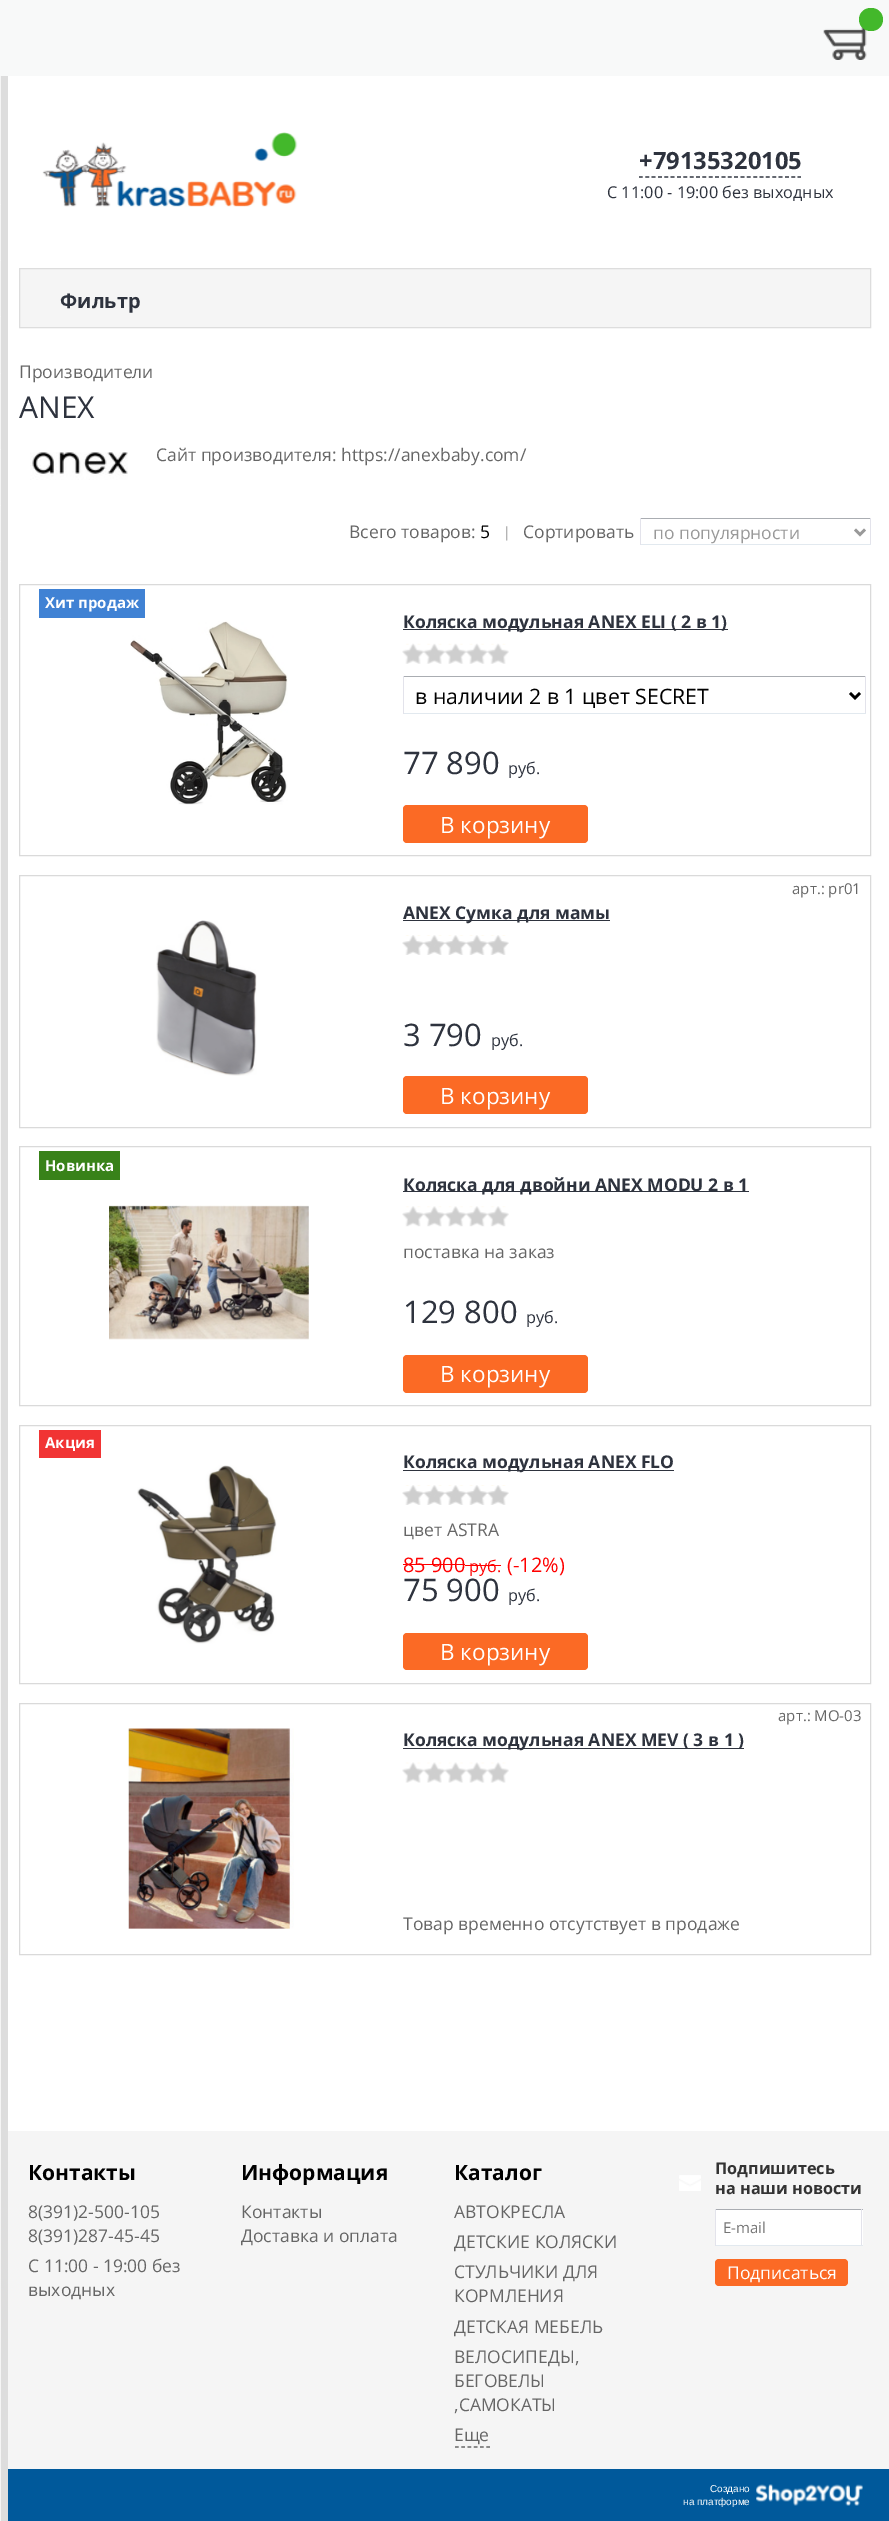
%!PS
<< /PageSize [889 2521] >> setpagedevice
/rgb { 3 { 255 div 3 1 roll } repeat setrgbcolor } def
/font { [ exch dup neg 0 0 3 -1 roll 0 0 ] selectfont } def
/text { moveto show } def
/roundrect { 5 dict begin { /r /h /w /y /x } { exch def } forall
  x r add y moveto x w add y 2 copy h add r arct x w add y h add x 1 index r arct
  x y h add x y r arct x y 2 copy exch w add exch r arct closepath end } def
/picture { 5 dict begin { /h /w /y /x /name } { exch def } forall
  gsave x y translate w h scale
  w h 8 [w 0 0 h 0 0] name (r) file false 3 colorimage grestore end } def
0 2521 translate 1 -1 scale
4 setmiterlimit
255 255 255 rgb
0 0 889 2521 rectfill
245 245 245 rgb
0 76 1 2445 rectfill
221 221 221 rgb
1 76 7 2445 rectfill
248 248 248 rgb
0 204 1 1 rectfill
0 260 1 1 rectfill
0 316 1 1 rectfill
0 373 1 1 rectfill
0 449 1 1 rectfill
0 505 1 1 rectfill
0 561 1 1 rectfill
0 618 1 1 rectfill
248 249 249 rgb
0 0 889 76 rectfill
(img_01.rgb) 823 26 44 34 picture
67 184 43 rgb
859 8 24 23 11.5 roundrect fill
(img_02.rgb) 42 132 256 75 picture
46 51 62 rgb
1.2 setlinewidth
[3.75 2.6] 0 setdash
639 177 moveto 162 0 rlineto stroke
245 245 245 rgb
19.5 268.5 moveto 851 0 rlineto 0 59 rlineto -851 0 rlineto closepath gsave fill grestore
221 221 221 rgb
1 setlinewidth
[] 0 setdash
stroke
(img_03.rgb) 30 452 98 28 picture
170 173 178 rgb
640 518 231 1 rectfill
227 227 235 rgb
870 518 1 27 rectfill
226 233 239 rgb
640 544 231 1 rectfill
227 227 235 rgb
640 518 1 27 rectfill
153 153 153 rgb
2.5 setlinewidth
855 529.5 moveto 5 5 rlineto 5 -5 rlineto stroke
218 218 218 rgb
1 setlinewidth
19.5 584.5 851 271 rectstroke
64 130 212 rgb
39 589 106 29 rectfill
(img_04.rgb) 130 621 158 184 picture
46 51 62 rgb
403 629 325 1 rectfill
(img_05.rgb) 402 643 107 21 picture
170 173 178 rgb
403 676 463 1 rectfill
227 227 235 rgb
865 676 1 38 rectfill
226 233 239 rgb
403 713 463 1 rectfill
227 227 235 rgb
403 676 1 38 rectfill
0 0 0 rgb
2.5 setlinewidth
850 693 moveto 5 5 rlineto 5 -5 rlineto stroke
251 106 37 rgb
403 805 185 38 4 roundrect fill
218 218 218 rgb
1 setlinewidth
19.5 875.5 851 252 rectstroke
(img_06.rgb) 156 920 101 156 picture
46 51 62 rgb
403 920 207 1 rectfill
(img_07.rgb) 402 935 107 20 picture
251 106 37 rgb
403 1076 185 38 4 roundrect fill
218 218 218 rgb
19.5 1146.5 851 259 rectstroke
56 130 25 rgb
39 1151 81 29 rectfill
(img_08.rgb) 109 1205 200 135 picture
46 51 62 rgb
403 1191 346 1 rectfill
(img_09.rgb) 402 1206 107 21 picture
251 106 37 rgb
403 1355 185 38 4 roundrect fill
218 218 218 rgb
19.5 1425.5 851 258 rectstroke
241 52 52 rgb
39 1430 62 28 rectfill
(img_10.rgb) 137 1465 140 179 picture
46 51 62 rgb
403 1470 271 1 rectfill
(img_07.rgb) 402 1485 107 20 picture
255 0 0 rgb
403 1564 62 1 rectfill
465 1565 36 1 rectfill
251 106 37 rgb
403 1633 185 37 4 roundrect fill
218 218 218 rgb
19.5 1703.5 851 251 rectstroke
(img_11.rgb) 128 1728 166 201 picture
46 51 62 rgb
403 1748 341 1 rectfill
(img_12.rgb) 402 1762 107 21 picture
245 245 245 rgb
8 2131 881 338 rectfill
102 102 102 rgb
1.2 setlinewidth
[3.75 2.5] 0 setdash
455 2447 moveto 35 0 rlineto stroke
(img_13.rgb) 679 2175 22 16 picture
255 255 255 rgb
716 2210 147 35 rectfill
170 173 178 rgb
715 2209 148 1 rectfill
227 227 235 rgb
861 2209 1 37 rectfill
226 233 239 rgb
715 2245 148 1 rectfill
227 227 235 rgb
715 2209 1 37 rectfill
251 106 37 rgb
715 2259 133 27 4 roundrect fill
0 89 155 rgb
8 2469 881 52 rectfill
(img_14.rgb) 756 2484 107 22 picture
/OpenSans-Bold 23.75 font
46 51 62 rgb
(+79135320105) 639 169 text
/OpenSans-Regular 16.25 font
(C 11:00 - 19:00 без выходных) 607 198 text
/OpenSans-Bold 20 font
(Фильтр) 60 308 text
/OpenSans-Regular 17.5 font
102 102 102 rgb
(Производители) 19 378 text
/OpenSans-Regular 30 font
46 51 62 rgb
(ANEX) 19 418 text
/OpenSans-Regular 17.5 font
102 102 102 rgb
(Сайт производителя: https://anexbaby.com/) 156 461 text
(Всего товаров:) 349 538 text
0 0 0 rgb
(5) 480 538 text
/OpenSans-Regular 14 font
153 153 153 rgb
(|) 503 537 text
/OpenSans-Regular 17.5 font
102 102 102 rgb
(Сортировать) 523 538 text
153 153 153 rgb
(по популярности) 653 539 text
/OpenSans-Bold 15 font
255 255 255 rgb
(Хит продаж) 45 608 text
/OpenSans-Bold 17.5 font
46 51 62 rgb
(Коляска модульная ANEX ELI \( 2 в 1\)) 403 628 text
/OpenSans-Regular 21.25 font
0 0 0 rgb
(в наличии 2 в 1 цвет SECRET) 415 704 text
/OpenSans-Regular 31 font
46 51 62 rgb
(77 890) 403 774 text
/OpenSans-Regular 16.25 font
(руб.) 508 774 text
/OpenSans-Regular 22.5 font
255 255 255 rgb
(В корзину) 440 833 text
/OpenSans-Regular 15 font
102 102 102 rgb
(арт.: pr01) 792 894 text
/OpenSans-Bold 17.5 font
46 51 62 rgb
(ANEX Cумка для мамы) 403 919 text
/OpenSans-Regular 31 font
(3 790) 403 1046 text
/OpenSans-Regular 16.25 font
(руб.) 491 1046 text
/OpenSans-Regular 22.5 font
255 255 255 rgb
(В корзину) 440 1104 text
/OpenSans-Bold 15 font
(Новинка) 45 1171 text
/OpenSans-Bold 17.5 font
46 51 62 rgb
(Коляска для двойни ANEX MODU 2 в 1) 403 1191 text
/OpenSans-Regular 17.5 font
102 102 102 rgb
(поставка на заказ) 403 1258 text
/OpenSans-Regular 31 font
46 51 62 rgb
(129 800) 403 1323 text
/OpenSans-Regular 16.25 font
(руб.) 526 1323 text
/OpenSans-Regular 22.5 font
255 255 255 rgb
(В корзину) 440 1382 text
/OpenSans-Bold 15 font
(Акция) 45 1448 text
/OpenSans-Bold 17.5 font
46 51 62 rgb
(Коляска модульная ANEX FLO) 403 1468 text
/OpenSans-Regular 17.5 font
102 102 102 rgb
(цвет ASTRA) 403 1536 text
/OpenSans-Regular 20 font
255 0 0 rgb
(85 900) 403 1572 text
/OpenSans-Regular 16.25 font
(руб.) 469 1572 text
/OpenSans-Regular 20 font
(\(-12%\)) 507 1572 text
/OpenSans-Regular 31 font
46 51 62 rgb
(75 900) 403 1601 text
/OpenSans-Regular 16.25 font
(руб.) 508 1601 text
/OpenSans-Regular 22.5 font
255 255 255 rgb
(В корзину) 440 1660 text
/OpenSans-Regular 15 font
102 102 102 rgb
(арт.: MO-03) 778 1721 text
/OpenSans-Bold 17.5 font
46 51 62 rgb
(Коляска модульная ANEX MEV \( 3 в 1 \)) 403 1746 text
/OpenSans-Regular 17.5 font
102 102 102 rgb
(Товар временно отсутствует в продаже) 403 1930 text
/OpenSans-Bold 21 font
0 0 0 rgb
(Контакты) 28 2180 text
/OpenSans-Regular 17.5 font
102 102 102 rgb
(8\(391\)2-500-105) 28 2218 text
(8\(391\)287-45-45) 28 2242 text
(C 11:00 - 19:00 без) 28 2272 text
(выходных) 28 2296 text
/OpenSans-Bold 21 font
0 0 0 rgb
(Информация) 241 2180 text
/OpenSans-Regular 17.5 font
102 102 102 rgb
(Контакты) 241 2218 text
(Доставка и оплата) 241 2242 text
/OpenSans-Bold 21 font
0 0 0 rgb
(Каталог) 454 2180 text
/OpenSans-Regular 17.5 font
102 102 102 rgb
(АВТОКРЕСЛА) 454 2218 text
(ДЕТСКИЕ КОЛЯСКИ) 454 2248 text
(CТУЛЬЧИКИ ДЛЯ) 454 2278 text
(КОРМЛЕНИЯ) 454 2302 text
(ДЕТСКАЯ МЕБЕЛЬ) 454 2333 text
(ВЕЛОСИПЕДЫ,) 454 2363 text
(БЕГОВЕЛЫ) 454 2387 text
(,САМОКАТЫ) 454 2411 text
(Еще) 454 2441 text
/OpenSans-Bold 16.25 font
51 51 51 rgb
(Подпишитесь) 715 2174 text
(на наши новости) 715 2194 text
/OpenSans-Regular 15 font
117 117 117 rgb
(E-mail) 723 2233 text
/OpenSans-Regular 17.5 font
255 255 255 rgb
(Подписаться) 727 2279 text
/LiberationSans-Regular 10 font
(Создано) 710 2492 text
(на платформе) 683 2505 text
showpage
